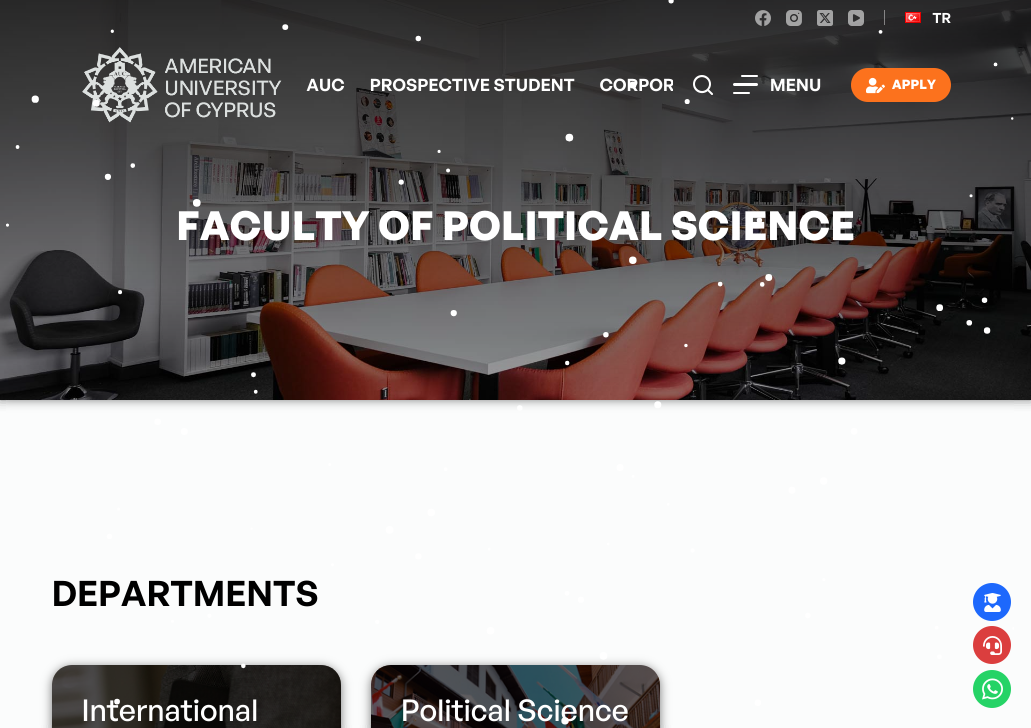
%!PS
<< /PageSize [1031 728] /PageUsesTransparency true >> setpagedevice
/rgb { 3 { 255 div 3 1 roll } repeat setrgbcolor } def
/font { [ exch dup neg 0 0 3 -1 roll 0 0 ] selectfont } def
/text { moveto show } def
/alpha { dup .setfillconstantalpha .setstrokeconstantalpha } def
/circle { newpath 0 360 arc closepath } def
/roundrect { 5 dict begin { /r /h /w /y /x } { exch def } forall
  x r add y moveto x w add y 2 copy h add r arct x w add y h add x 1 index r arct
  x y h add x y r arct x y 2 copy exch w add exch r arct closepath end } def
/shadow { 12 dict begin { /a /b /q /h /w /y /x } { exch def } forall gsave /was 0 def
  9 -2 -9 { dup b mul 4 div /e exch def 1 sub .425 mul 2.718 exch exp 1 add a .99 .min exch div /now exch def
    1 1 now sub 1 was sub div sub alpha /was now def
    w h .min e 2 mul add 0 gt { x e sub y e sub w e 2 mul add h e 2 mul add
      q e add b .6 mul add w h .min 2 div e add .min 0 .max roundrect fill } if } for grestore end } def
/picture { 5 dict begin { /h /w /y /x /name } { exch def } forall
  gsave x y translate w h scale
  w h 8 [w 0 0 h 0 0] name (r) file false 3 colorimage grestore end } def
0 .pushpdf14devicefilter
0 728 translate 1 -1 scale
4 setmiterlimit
251 252 252 rgb
0 0 1031 728 rectfill
0 0 0 rgb
0 0 1031 400 0 5 0.5 shadow
(img_10.rgb) 0 0 1031 400 picture
(img_02.rgb) 755 10 16 16 picture
(img_03.rgb) 786 10 16 16 picture
(img_04.rgb) 817 10 16 16 picture
(img_05.rgb) 848 10 16 16 picture
0.42 alpha
255 255 255 rgb
884 10 1 15 rectfill
1 alpha
(img_06.rgb) 905 12 16 11 picture
(img_07.rgb) 82 47 200 76 picture
(img_08.rgb) 693 75 20 20 picture
741 75 17 2 1 roundrect fill
733 83 25 3 1.5 roundrect fill
733 92 17 2 1 roundrect fill
252 114 29 rgb
851 68 100 34 17 roundrect fill
(img_09.rgb) 866 77 19 17 picture
0 0 0 rgb
52 667 289 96 20 5 0.53 shadow
(img_11.rgb) 52 665 289 63 picture
0.6 alpha
52 665 289 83 20 roundrect fill
1 alpha
371 667 289 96 20 5 0.53 shadow
(img_12.rgb) 371 665 289 63 picture
0.6 alpha
371 665 289 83 20 roundrect fill
1 alpha
29 104 252 rgb
992 602 19 circle fill
(img_13.rgb) 984 593 17 19 picture
219 62 62 rgb
992 645 19 circle fill
(img_14.rgb) 983 636 19 19 picture
37 211 102 rgb
992 689 19 circle fill
(img_15.rgb) 982 678 21 22 picture
/GeneralSans-SemiBold 14 font
255 255 255 rgb
(TR) 932 23 text
/GeneralSans-SemiBold 17 font
(AUC) 306 91 text
(PROSPECTIVE STUDENT) 370 91 text
gsave
294 35 379 100 rectclip
(CORPOR) 600 91 text
grestore
(MENU) 770 91 text
/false-Bold 13 font
(APPLY) 892 89 text
/false-Bold 40 font
(FACULTY OF POLITICAL SCIENCE) 176 240 text
/GeneralSans-SemiBold 35 font
0 0 0 rgb
(DEPARTMENTS) 52 606 text
/GeneralSans-Medium 30 font
255 255 255 rgb
(International) 82 721 text
(Political Science) 401 721 text
(img_01.rgb) 6 0 1008 725 picture
.poppdf14devicefilter showpage
